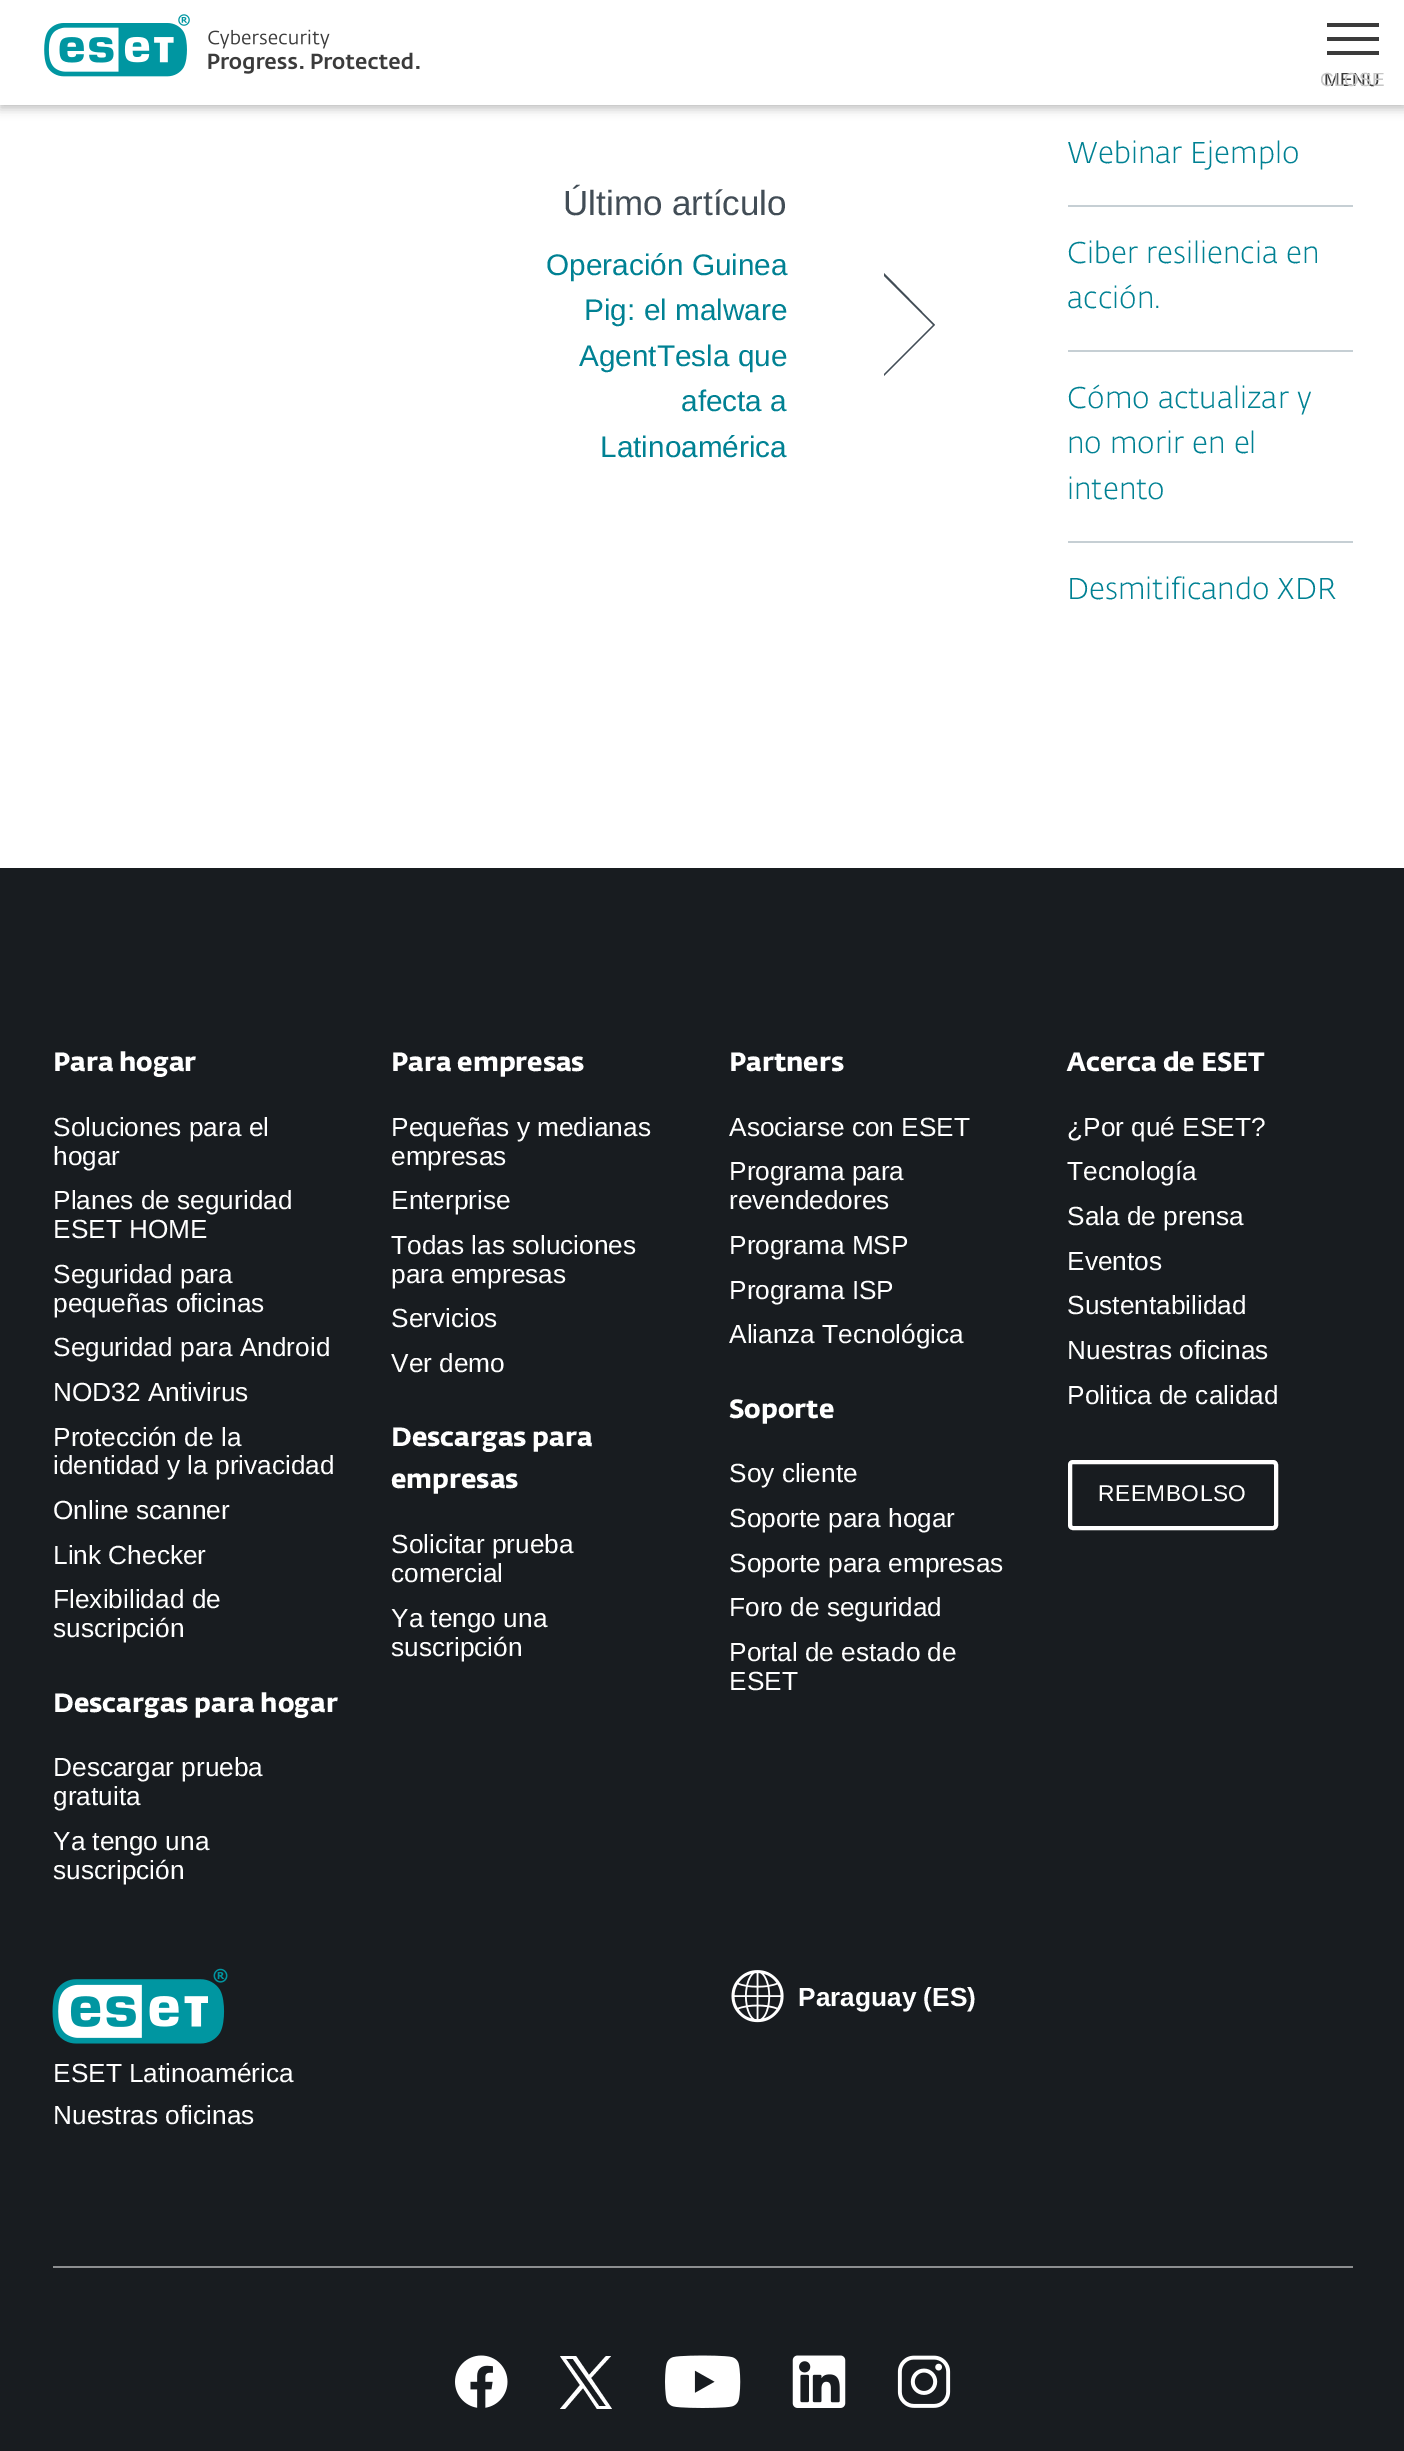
%!PS
<< /PageSize [1404 2451] /PageUsesTransparency true >> setpagedevice
/rgb { 3 { 255 div 3 1 roll } repeat setrgbcolor } def
/font { [ exch dup neg 0 0 3 -1 roll 0 0 ] selectfont } def
/text { moveto show } def
/alpha { dup .setfillconstantalpha .setstrokeconstantalpha } def
/roundrect { 5 dict begin { /r /h /w /y /x } { exch def } forall
  x r add y moveto x w add y 2 copy h add r arct x w add y h add x 1 index r arct
  x y h add x y r arct x y 2 copy exch w add exch r arct closepath end } def
/shadow { 12 dict begin { /a /b /q /h /w /y /x } { exch def } forall gsave /was 0 def
  9 -2 -9 { dup b mul 4 div /e exch def 1 sub .425 mul 2.718 exch exp 1 add a .99 .min exch div /now exch def
    1 1 now sub 1 was sub div sub alpha /was now def
    w h .min e 2 mul add 0 gt { x e sub y e sub w e 2 mul add h e 2 mul add
      q e add b .6 mul add w h .min 2 div e add .min 0 .max roundrect fill } if } for grestore end } def
/picture { 5 dict begin { /h /w /y /x /name } { exch def } forall
  gsave x y translate w h scale
  w h 8 [w 0 0 h 0 0] name (r) file false 3 colorimage grestore end } def
0 .pushpdf14devicefilter
0 2451 translate 1 -1 scale
4 setmiterlimit
255 255 255 rgb
0 0 1404 2451 rectfill
0 0 0 rgb
0 5 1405 97 0 5 0.26 shadow
0 5 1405 105 0 5 0.16 shadow
255 255 255 rgb
0 0 1404 105 rectfill
(img_01.rgb) 44 14 376 63 picture
59 59 59 rgb
1327 23 52 4 rectfill
1327 37 52 4 rectfill
1327 51 52 4 rectfill
66 77 86 rgb
935 325 moveto -51 51 rlineto 0 -2 rlineto 49 -49 rlineto -49 -49 rlineto 0 -3 rlineto closepath fill
198 207 212 rgb
1068 205 285 2 rectfill
1068 350 285 2 rectfill
1068 541 285 2 rectfill
24 28 32 rgb
0 868 1404 1583 rectfill
255 255 255 rgb
4 setlinewidth
1070 1462 206 66 3 roundrect stroke
(img_02.rgb) 731 1970 53 53 picture
(img_03.rgb) 52 1968 176 76 picture
140 142 144 rgb
53 2266 1300 2 rectfill
(img_04.rgb) 455 2355 53 53 picture
255 255 255 rgb
591 2378 moveto 20 -22 rlineto -5 0 rlineto -17 19 rlineto -13 -19 rlineto -16 0 rlineto 20 29 rlineto -20 24 rlineto 5 0 rlineto 18 -21 rlineto 14 21 rlineto 15 0 rlineto closepath 585 2386 moveto -19 -27 rlineto 7 0 rlineto 33 47 rlineto -7 0 rlineto closepath fill
(img_05.rgb) 665 2355 76 53 picture
(img_06.rgb) 792 2355 54 53 picture
(img_07.rgb) 897 2355 54 53 picture
/LiberationSans-Regular 19 font
59 59 59 rgb
(MENU) 1324 86 text
199 199 199 rgb
(CLOSE) 1320 86 text
/LiberationSans-Regular 35 font
66 77 86 rgb
(Último artículo) 563 215 text
/LiberationSans-Regular 29.75 font
0 129 147 rgb
(Operación Guinea) 546 275 text
(Pig: el malware) 584 320 text
(AgentTesla que) 579 366 text
(afecta a) 681 411 text
(Latinoamérica) 600 457 text
/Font-Light 29.75 font
(Webinar Ejemplo) 1067 163 text
(Ciber resiliencia en) 1067 263 text
(acción.) 1067 308 text
(Cómo actualizar y) 1067 408 text
(no morir en el) 1067 453 text
(intento) 1067 499 text
(Desmitificando XDR) 1067 599 text
/Font-Bold 26.25 font
255 255 255 rgb
(Para hogar) 53 1071 text
/LiberationSans-Regular 26.25 font
(Soluciones para el) 53 1136 text
(hogar) 53 1165 text
(Planes de seguridad) 53 1209 text
(ESET HOME) 53 1238 text
(Seguridad para) 53 1283 text
(pequeñas oficinas) 53 1312 text
(Seguridad para Android) 53 1356 text
(NOD32 Antivirus) 53 1401 text
(Protección de la) 53 1446 text
(identidad y la privacidad) 53 1474 text
(Online scanner) 53 1519 text
(Link Checker) 53 1564 text
(Flexibilidad de) 53 1608 text
(suscripción) 53 1637 text
/Font-Bold 26.25 font
(Descargas para hogar) 53 1712 text
/LiberationSans-Regular 26.25 font
(Descargar prueba) 53 1776 text
(gratuita) 53 1805 text
(Ya tengo una) 53 1850 text
(suscripción) 53 1879 text
/Font-Bold 26.25 font
(Para empresas) 391 1071 text
/LiberationSans-Regular 26.25 font
(Pequeñas y medianas) 391 1136 text
(empresas) 391 1165 text
(Enterprise) 391 1209 text
(Todas las soluciones) 391 1254 text
(para empresas) 391 1283 text
(Servicios) 391 1327 text
(Ver demo) 391 1372 text
/Font-Bold 26.25 font
(Descargas para) 391 1446 text
(empresas) 391 1488 text
/LiberationSans-Regular 26.25 font
(Solicitar prueba) 391 1553 text
(comercial) 391 1582 text
(Ya tengo una) 391 1627 text
(suscripción) 391 1656 text
/Font-Bold 26.25 font
(Partners) 729 1071 text
/LiberationSans-Regular 26.25 font
(Asociarse con ESET) 729 1136 text
(Programa para) 729 1180 text
(revendedores) 729 1209 text
(Programa MSP) 729 1254 text
(Programa ISP) 729 1299 text
(Alianza Tecnológica) 729 1343 text
/Font-Bold 26.25 font
(Soporte) 729 1418 text
/LiberationSans-Regular 26.25 font
(Soy cliente) 729 1482 text
(Soporte para hogar) 729 1527 text
(Soporte para empresas) 729 1572 text
(Foro de seguridad) 729 1616 text
(Portal de estado de) 729 1661 text
(ESET) 729 1690 text
/Font-Bold 26.25 font
(Acerca de ESET) 1067 1071 text
/LiberationSans-Regular 26.25 font
(¿Por qué ESET?) 1067 1136 text
(Tecnología) 1067 1180 text
(Sala de prensa) 1067 1225 text
(Eventos) 1067 1270 text
(Sustentabilidad) 1067 1314 text
(Nuestras oficinas) 1067 1359 text
(Politica de calidad) 1067 1404 text
/LiberationSans-Regular 22.75 font
1098 1501 moveto 0.5 0 (REEMBOLSO) ashow
/LiberationSans-Bold 26.25 font
(Paraguay \(ES\)) 798 2006 text
/LiberationSans-Regular 26.25 font
(ESET Latinoamérica) 53 2082 text
(Nuestras oficinas) 53 2124 text
.poppdf14devicefilter showpage
